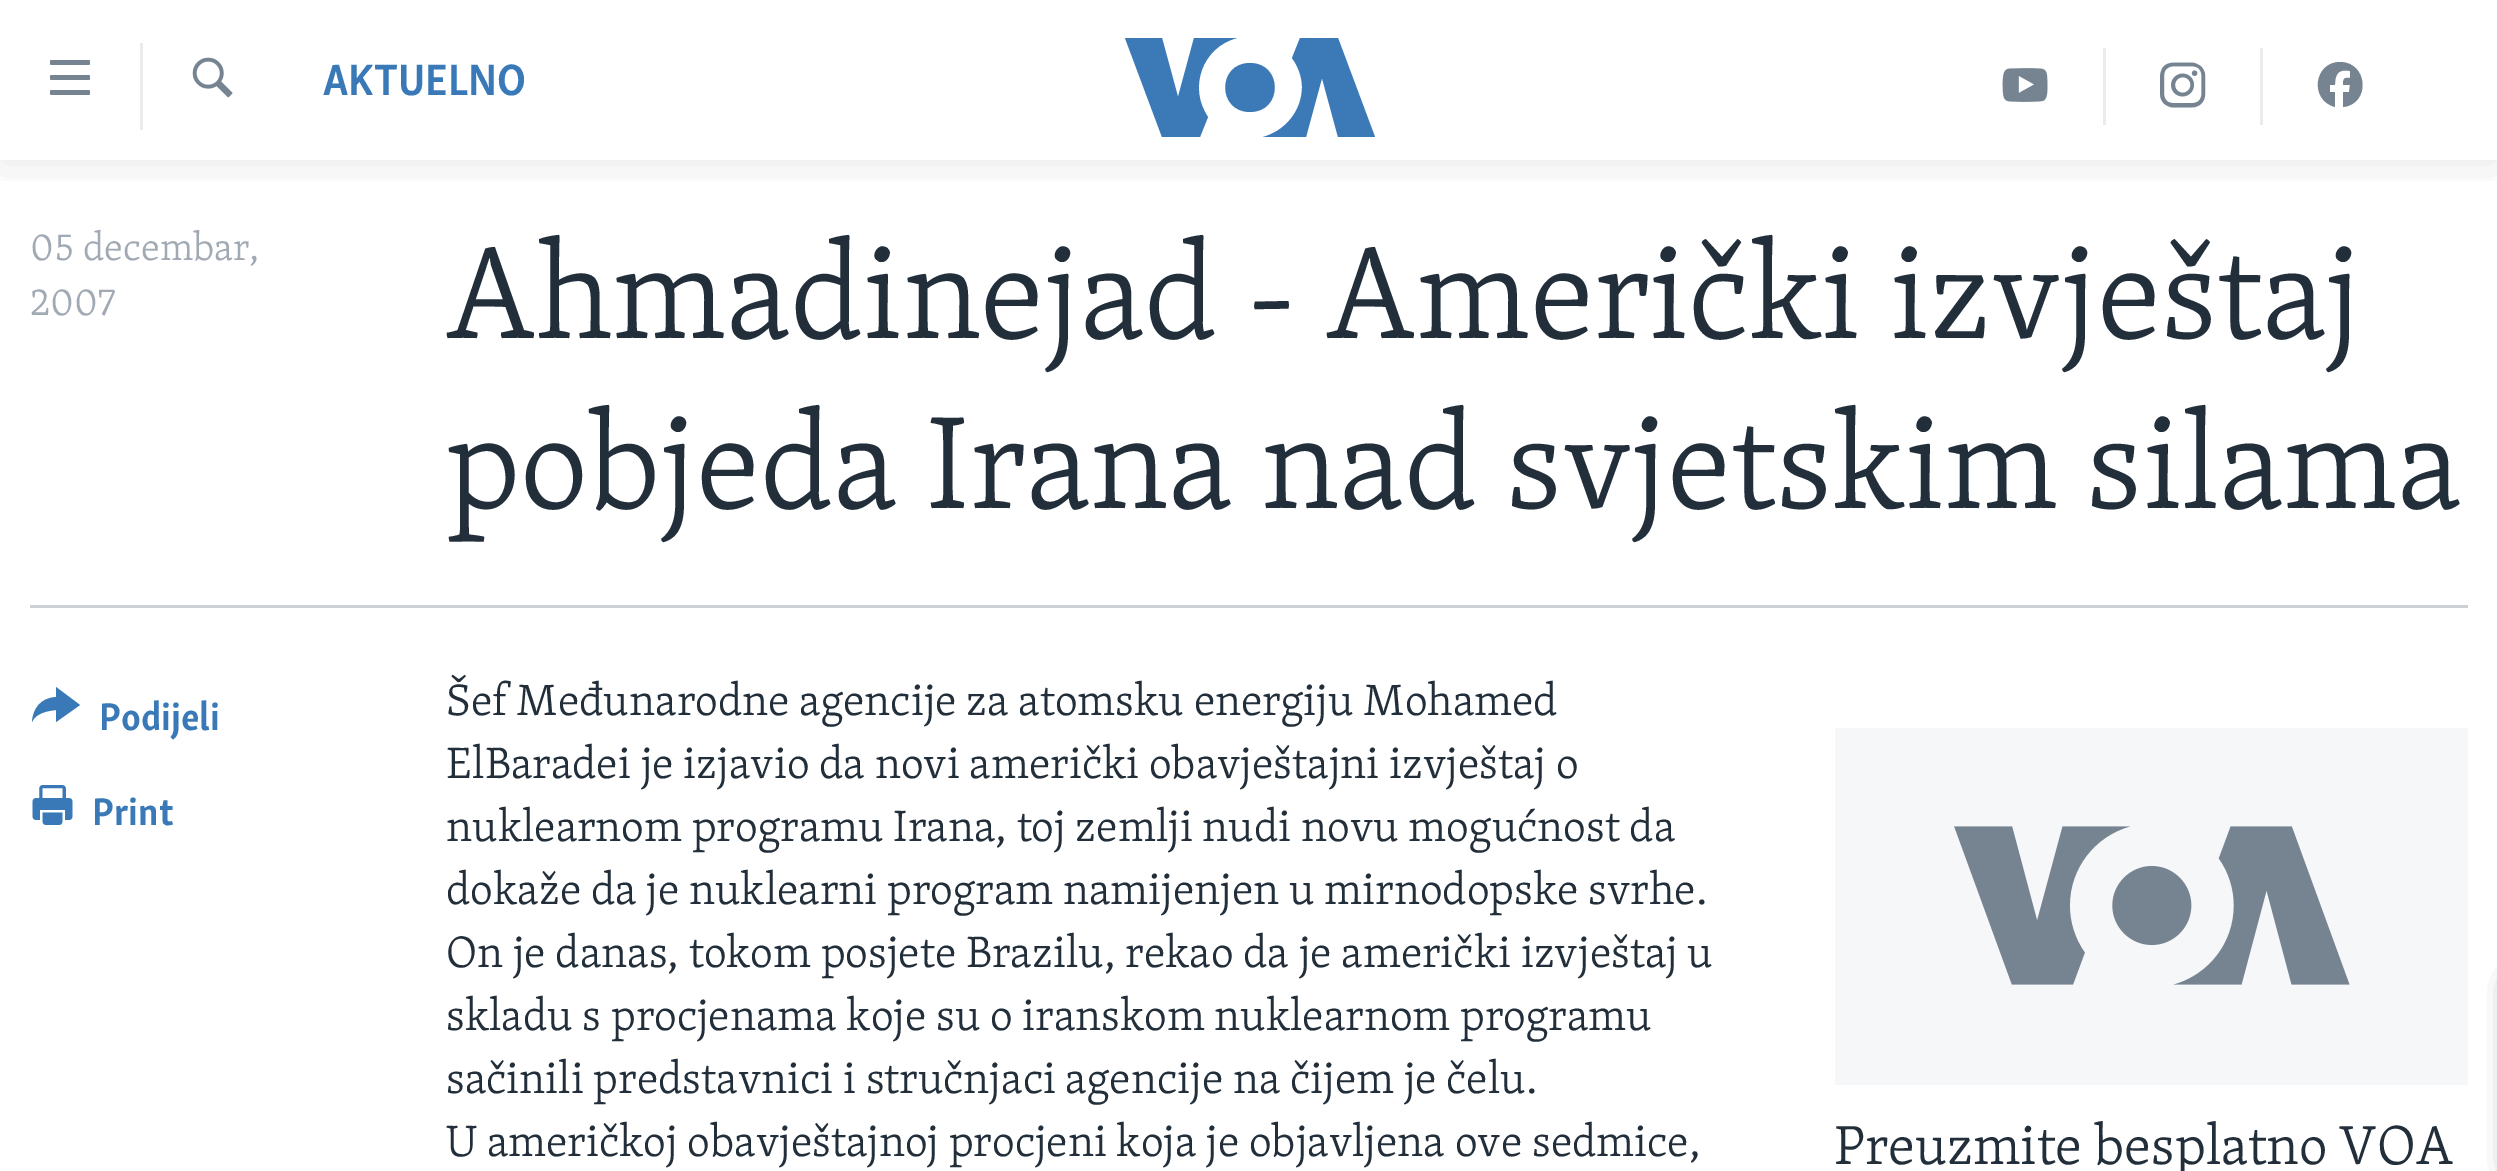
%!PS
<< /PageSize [2497 1171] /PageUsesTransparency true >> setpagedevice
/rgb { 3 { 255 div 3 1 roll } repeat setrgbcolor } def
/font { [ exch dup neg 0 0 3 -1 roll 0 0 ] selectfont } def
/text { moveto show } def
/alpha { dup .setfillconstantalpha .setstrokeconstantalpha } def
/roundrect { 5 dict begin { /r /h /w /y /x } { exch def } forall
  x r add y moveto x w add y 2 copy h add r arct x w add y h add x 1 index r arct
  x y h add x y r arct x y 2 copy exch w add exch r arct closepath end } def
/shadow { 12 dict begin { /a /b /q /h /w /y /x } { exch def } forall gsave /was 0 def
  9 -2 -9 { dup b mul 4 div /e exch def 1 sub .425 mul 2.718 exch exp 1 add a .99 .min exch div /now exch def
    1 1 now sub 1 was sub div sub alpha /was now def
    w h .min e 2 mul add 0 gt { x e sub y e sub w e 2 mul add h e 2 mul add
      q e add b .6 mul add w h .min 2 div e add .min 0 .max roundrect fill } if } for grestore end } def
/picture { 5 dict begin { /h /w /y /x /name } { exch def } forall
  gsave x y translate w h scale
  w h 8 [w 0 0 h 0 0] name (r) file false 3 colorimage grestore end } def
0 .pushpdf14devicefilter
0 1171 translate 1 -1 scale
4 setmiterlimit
255 255 255 rgb
0 0 2497 1171 rectfill
gsave
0 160 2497 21 rectclip
0 0 0 rgb
0 0 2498 160 0 25 0.1 shadow
grestore
(img_01.rgb) 50 60 40 35 picture
235 235 235 rgb
140 43 3 87 rectfill
(img_02.rgb) 192 57 41 41 picture
59 121 183 rgb
1208 117 moveto -8 20 rlineto -38 0 rlineto -37 -99 rlineto 37 0 rlineto 16 59 rlineto 16 -59 rlineto 43 0 rlineto -35 9 -49 50 -29 79 rcurveto closepath 1250 63 moveto -33 0 -33 49 0 49 rcurveto 33 0 33 -49 0 -49 rcurveto closepath 1302 87 moveto 0 24 -17 44 -39 50 rcurveto 43 0 rlineto 16 -59 rlineto 16 59 rlineto 37 0 rlineto -37 -99 rlineto -38 0 rlineto -8 20 rlineto 6 8 10 19 10 29 rcurveto closepath fill
235 235 235 rgb
2103 48 3 77 rectfill
(img_03.rgb) 2002 68 46 34 picture
2260 48 3 77 rectfill
(img_04.rgb) 2160 62 46 46 picture
118 132 146 rgb
2340 62 moveto -26 0 -31 38 -5 45 rcurveto 0 -15 rlineto -5 0 rlineto 0 -7 rlineto 5 0 rlineto 0 -12 4 -16 15 -14 rcurveto 0 7 rlineto -6 -1 -7 1 -7 7 rcurveto 7 0 rlineto -1 7 rlineto -6 0 rlineto 0 15 rlineto 28 -3 25 -45 -3 -45 rcurveto closepath fill
203 209 214 rgb
30 605 2438 3 rectfill
58 121 183 rgb
32 722 moveto 1 -14 9 -24 24 -25 rcurveto 0 -10 rlineto 24 18 rlineto -24 17 rlineto 0 -12 rlineto -9 1 -20 3 -24 12 rcurveto closepath fill
(img_05.rgb) 32 785 41 40 picture
246 247 248 rgb
1835 728 633 357 rectfill
(img_06.rgb) 1954 826 396 159 picture
0 0 0 rgb
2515 978 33 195 13 12.5 0.85 shadow
/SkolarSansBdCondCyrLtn-Bold 45 font
58 121 183 rgb
(AKTUELNO) 323 95 text
/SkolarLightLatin-Light 39.5 font
161 170 180 rgb
(05 decembar,) 30 260 text
(2007) 30 315 text
/SkolarLightLatin-Light 135 font
34 47 58 rgb
(Ahmadinejad - Američki izvještaj) 446 338 text
(pobjeda Irana nad svjetskim silama) 446 508 text
/SkolarSansBdCondCyrLtn-Bold 39.5 font
58 121 183 rgb
(Podijeli) 99 730 text
(Print) 92 825 text
/SkolarLightLatin-Light 45 font
34 47 58 rgb
(Šef Međunarodne agencije za atomsku energiju Mohamed) 446 715 text
(ElBaradei je izjavio da novi američki obavještajni izvještaj o) 446 778 text
(nuklearnom programu Irana, toj zemlji nudi novu mogućnost da) 446 841 text
(dokaže da je nuklearni program namijenjen u mirnodopske svrhe.) 446 904 text
(On je danas, tokom posjete Brazilu, rekao da je američki izvještaj u) 446 967 text
(skladu s procjenama koje su o iranskom nuklearnom programu) 446 1030 text
(sačinili predstavnici i stručnjaci agencije na čijem je čelu.) 446 1093 text
(U američkoj obavještajnoj procjeni koja je objavljena ove sedmice,) 446 1156 text
/SkolarLightLatin-Light 56.25 font
(Preuzmite besplatno VOA) 1834 1164 text
.poppdf14devicefilter showpage
